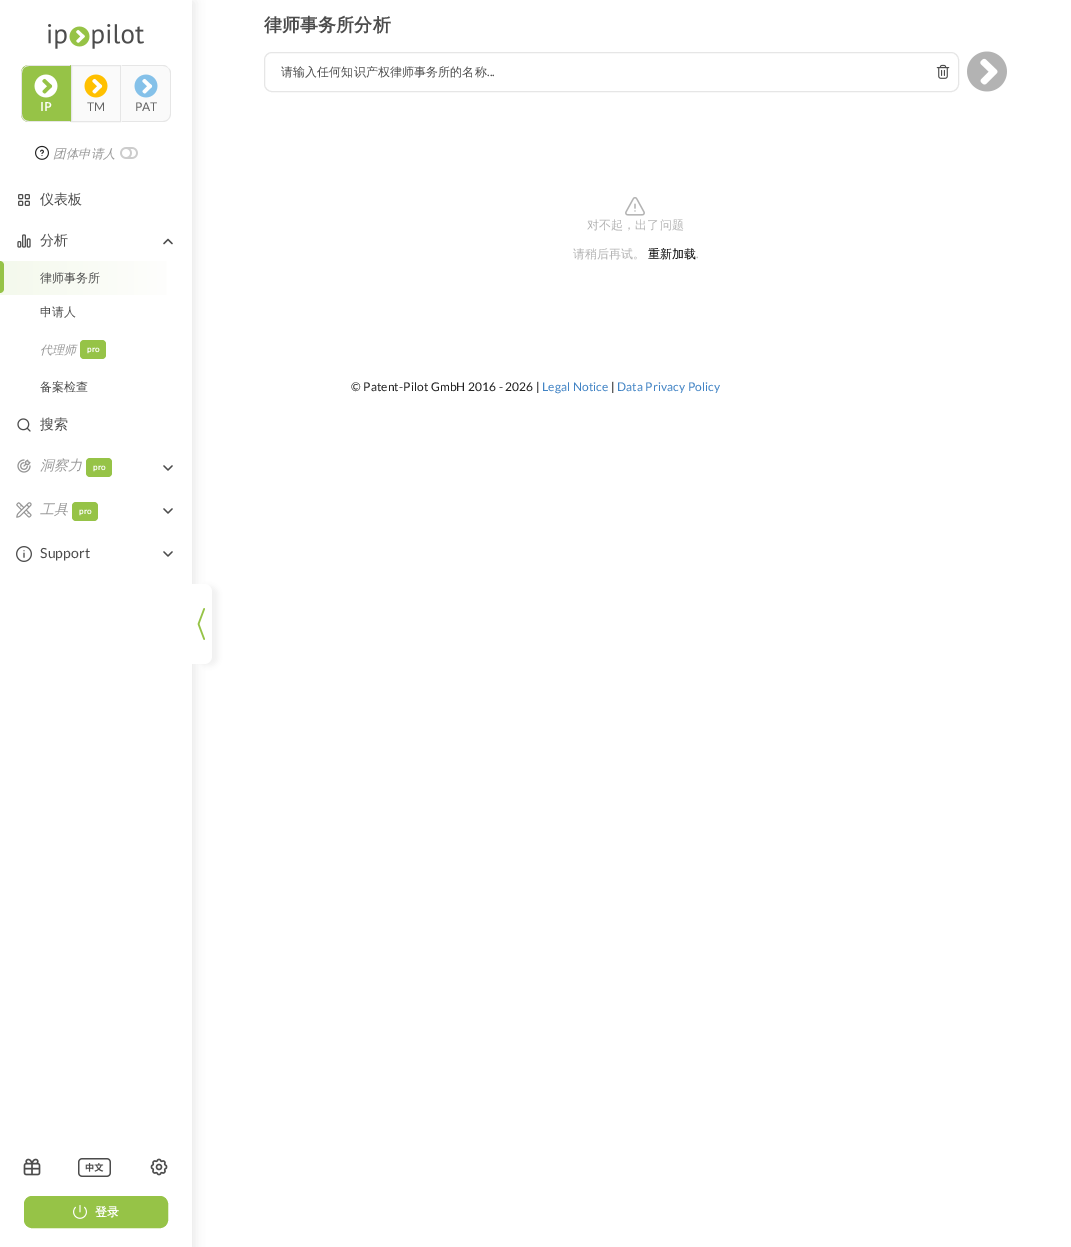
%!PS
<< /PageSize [1071 1247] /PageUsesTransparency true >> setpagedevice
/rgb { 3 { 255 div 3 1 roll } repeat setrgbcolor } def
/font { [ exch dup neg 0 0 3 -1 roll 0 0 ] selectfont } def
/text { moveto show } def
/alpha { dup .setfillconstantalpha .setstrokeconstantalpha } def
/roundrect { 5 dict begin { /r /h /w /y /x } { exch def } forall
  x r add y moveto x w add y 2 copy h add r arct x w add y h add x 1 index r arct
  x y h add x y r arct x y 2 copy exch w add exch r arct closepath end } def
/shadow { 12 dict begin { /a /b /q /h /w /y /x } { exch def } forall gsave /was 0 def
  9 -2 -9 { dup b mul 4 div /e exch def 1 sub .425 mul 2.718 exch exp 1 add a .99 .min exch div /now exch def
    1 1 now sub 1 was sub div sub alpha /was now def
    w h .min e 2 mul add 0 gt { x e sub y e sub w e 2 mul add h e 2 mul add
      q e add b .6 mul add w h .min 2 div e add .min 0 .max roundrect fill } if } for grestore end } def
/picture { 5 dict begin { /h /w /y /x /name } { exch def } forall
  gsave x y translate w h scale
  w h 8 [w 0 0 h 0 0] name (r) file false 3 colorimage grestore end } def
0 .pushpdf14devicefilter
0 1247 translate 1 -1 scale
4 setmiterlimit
255 255 255 rgb
0 0 1071 1247 rectfill
gsave
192 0 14 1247 rectclip
228 228 228 rgb
2 2 192 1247 0 6 1 shadow
grestore
(img_01.rgb) 48 24 96 25 picture
150 195 71 rgb
29 65 moveto 42 0 rlineto 0 57 rlineto -42 0 rlineto -4.5 0 -8 -3.5 -8 -8 rcurveto 0 -41 rlineto 0 -4.5 3.5 -8 8 -8 rcurveto closepath fill
230 230 230 rgb
29 65 moveto -2 0 -4 1 -5 3 rcurveto 1 -1 3 -2 5 -2 rcurveto 41 0 rlineto 1 -1 rlineto closepath fill
150 195 71 rgb
71 65 moveto -1 1 rlineto 0 55 rlineto 1 1 rlineto closepath fill
230 230 230 rgb
71 122 moveto -1 -1 rlineto -41 0 rlineto -2 0 -4 -1 -5 -2 rcurveto 0 1 rlineto 1 1 3 2 5 2 rcurveto closepath 21 73 moveto 0 41 rlineto 0 2 1 4 3 6 rcurveto 0 -1 rlineto -1 -1 -2 -3 -2 -5 rcurveto 0 -41 rlineto 0 -2 1 -4 2 -5 rcurveto -2 1 -3 3 -3 5 rcurveto closepath fill
(img_02.rgb) 34 74 24 24 picture
250 250 250 rgb
71.5 65.5 moveto 49 0 rlineto 0 56 rlineto -49 0 rlineto closepath gsave fill grestore
230 230 230 rgb
stroke
(img_03.rgb) 84 74 24 24 picture
250 250 250 rgb
121 65 moveto 42 0 rlineto 4.5 0 8 3.5 8 8 rcurveto 0 41 rlineto 0 4.5 -3.5 8 -8 8 rcurveto -42 0 rlineto closepath fill
230 230 230 rgb
121 65 moveto 1 1 rlineto 41 0 rlineto 2 0 4 1 5 2 rcurveto -1 -2 -3 -3 -5 -3 rcurveto closepath 171 114 moveto 0 -41 rlineto 0 -2 -1 -4 -3 -5 rcurveto 1 1 2 3 2 5 rcurveto 0 41 rlineto 0 2 -1 4 -2 5 rcurveto 0 1 rlineto 2 -2 3 -4 3 -6 rcurveto closepath fill
163 122 moveto 2 0 4 -1 5 -2 rcurveto 0 -1 rlineto -1 1 -3 2 -5 2 rcurveto -41 0 rlineto -1 1 rlineto closepath fill
250 250 250 rgb
122 66 moveto -1 -1 rlineto 0 57 rlineto 1 -1 rlineto closepath fill
(img_04.rgb) 134 74 24 24 picture
(img_05.rgb) 35 145 14 15 picture
(img_06.rgb) 120 147 18 12 picture
(img_07.rgb) 18 194 12 12 picture
(img_08.rgb) 17 234 14 14 picture
76 76 76 rgb
1.3 setlinewidth
1 setlinecap
1 setlinejoin
172 243.5 moveto -4 -4 rlineto -4 4 rlineto stroke
gsave 0 261 moveto 167 0 rlineto 0 34 rlineto -167 0 rlineto closepath clip newpath
<< /ShadingType 2 /ColorSpace /DeviceRGB /Coords [0 278 192 278] /Extend [true true] /Function << /FunctionType 2 /Domain [0 1] /C0 [0.957 0.976 0.925] /C1 [1 1 1] /N 1 >> >> shfill grestore
150 195 71 rgb
0 261 moveto 2 0 4 2 4 4 rcurveto 0 24 rlineto 0 2 -2 4 -4 4 rcurveto closepath fill
80 340 26 19 4 roundrect fill
(img_09.rgb) 17 418 14 14 picture
(img_10.rgb) 17 459 14 14 picture
86 458 26 19 4 roundrect fill
76 76 76 rgb
164 466 moveto 4 4 rlineto 4 -4 rlineto stroke
(img_11.rgb) 16 502 16 16 picture
150 195 71 rgb
72 502 26 19 4 roundrect fill
76 76 76 rgb
164 509 moveto 4 4 rlineto 4 -4 rlineto stroke
(img_12.rgb) 16 546 16 16 picture
164 552 moveto 4 4 rlineto 4 -4 rlineto stroke
(img_13.rgb) 23 1158 18 18 picture
(img_14.rgb) 78 1158 33 19 picture
(img_15.rgb) 150 1158 18 18 picture
150 195 71 rgb
24.5 1196.5 143 31 7.5 roundrect gsave fill grestore
1 setlinewidth
0 setlinecap
0 setlinejoin
stroke
(img_16.rgb) 73 1205 14 14 picture
230 230 230 rgb
264.5 52.5 694 39 7.5 roundrect stroke
(img_17.rgb) 936 64 14 15 picture
(img_18.rgb) 967 51 40 41 picture
(img_19.rgb) 625 197 20 19 picture
240 240 240 rgb
198 586 20 80 8 3 1 shadow
255 255 255 rgb
192 584 moveto 12 0 rlineto 4.5 0 8 3.5 8 8 rcurveto 0 64 rlineto 0 4.5 -3.5 8 -8 8 rcurveto -12 0 rlineto closepath fill
(img_20.rgb) 197 608 8 32 picture
/Lato-Bold 12 font
(IP) 40 111 text
/Lato-Regular 12 font
100 100 100 rgb
(TM) 87 111 text
(PAT) 135 111 text
/WenQuanYiZenHei-MediumItalic 12.5 font
153 153 153 rgb
53 158 moveto 0.1 0 (团体申请人) ashow
/WenQuanYiZenHei-Medium 14 font
76 76 76 rgb
40 204 moveto 0.1 0 (仪表板) ashow
40 245 moveto 0.1 0 (分析) ashow
/WenQuanYiZenHei-Medium 12 font
40 282 moveto 0.1 0 (律师事务所) ashow
40 316 moveto 0.1 0 (申请人) ashow
/WenQuanYiZenHei-MediumItalic 12 font
153 153 153 rgb
40 354 moveto 0.1 0 (代理师) ashow
/Lato-Bold 8 font
255 255 255 rgb
87 352 moveto 0.1 0 (pro) ashow
/WenQuanYiZenHei-Medium 12 font
76 76 76 rgb
40 391 moveto 0.1 0 (备案检查) ashow
/WenQuanYiZenHei-Medium 14 font
40 429 moveto 0.1 0 (搜索) ashow
/WenQuanYiZenHei-MediumItalic 14 font
153 153 153 rgb
40 470 moveto 0.1 0 (洞察力) ashow
/Lato-Bold 8 font
255 255 255 rgb
93 470 moveto 0.1 0 (pro) ashow
/WenQuanYiZenHei-MediumItalic 14 font
153 153 153 rgb
40 514 moveto 0.1 0 (工具) ashow
/Lato-Bold 8 font
255 255 255 rgb
79 514 moveto 0.1 0 (pro) ashow
/Lato-Regular 14 font
76 76 76 rgb
40 558 moveto 0.1 0 (Support) ashow
/WenQuanYiZenHei-Bold 12 font
255 255 255 rgb
(登录) 95 1216 text
/WenQuanYiZenHei-Bold 18 font
76 76 76 rgb
264 31 moveto 0.1 0 (律师事务所分析) ashow
/WenQuanYiZenHei-Medium 12 font
281 76 moveto 0.1 0 (请输入任何知识产权律师事务所的名称) ashow
/Lato-Regular 12 font
487 76 moveto 0.1 0 (...) ashow
/WenQuanYiZenHei-Medium 12 font
179 179 179 rgb
587 229 moveto 0.1 0 (对不起，出了问题) ashow
573 258 moveto 0.1 0 (请稍后再试。) ashow
0 0 0 rgb
(重新加载) 648 258 text
/Lato-Regular 12 font
179 179 179 rgb
696 258 moveto 0.1 0 (.) ashow
33 33 33 rgb
351 391 moveto 0.1 0 (© Patent-Pilot GmbH 2016 - 2026 |) ashow
65 131 196 rgb
542 391 moveto 0.1 0 (Legal Notice) ashow
33 33 33 rgb
611 391 moveto 0.1 0 (|) ashow
65 131 196 rgb
617 391 moveto 0.1 0 (Data Privacy Policy) ashow
.poppdf14devicefilter showpage
